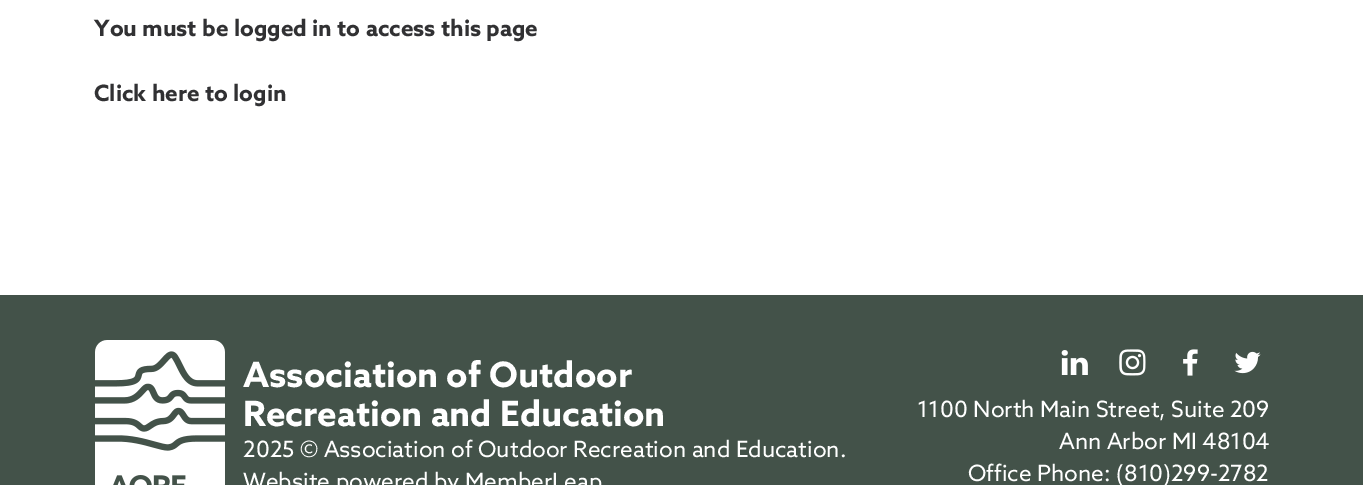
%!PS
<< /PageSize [1363 485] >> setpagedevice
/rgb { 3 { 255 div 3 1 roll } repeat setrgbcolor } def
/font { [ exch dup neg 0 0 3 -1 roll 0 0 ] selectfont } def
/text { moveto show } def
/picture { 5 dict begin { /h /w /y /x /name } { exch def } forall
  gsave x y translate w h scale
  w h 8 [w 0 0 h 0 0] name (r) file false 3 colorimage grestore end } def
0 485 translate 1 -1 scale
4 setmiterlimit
255 255 255 rgb
0 0 1363 485 rectfill
67 82 73 rgb
0 295 1363 190 rectfill
(img_01.rgb) 95 340 130 145 picture
(img_02.rgb) 1061 350 27 25 picture
(img_03.rgb) 1119 349 27 27 picture
(img_04.rgb) 1183 349 15 27 picture
(img_05.rgb) 1234 351 27 23 picture
/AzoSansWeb-Bold 22.5 font
49 49 51 rgb
(You must be logged in to access this page) 94 36 text
(Click here to login) 94 101 text
/AzoSansWeb-Bold 35 font
255 255 255 rgb
(Association of Outdoor) 243 387 text
(Recreation and Education) 243 426 text
/AzoSansWeb-Regular 22.5 font
(2025 © Association of Outdoor Recreation and Education.) 243 457 text
(Website powered by MemberLeap) 243 489 text
(1100 North Main Street, Suite 209) 917 417 text
(Ann Arbor MI 48104) 1059 449 text
(Office Phone: \(810\)299-2782) 968 481 text
showpage
